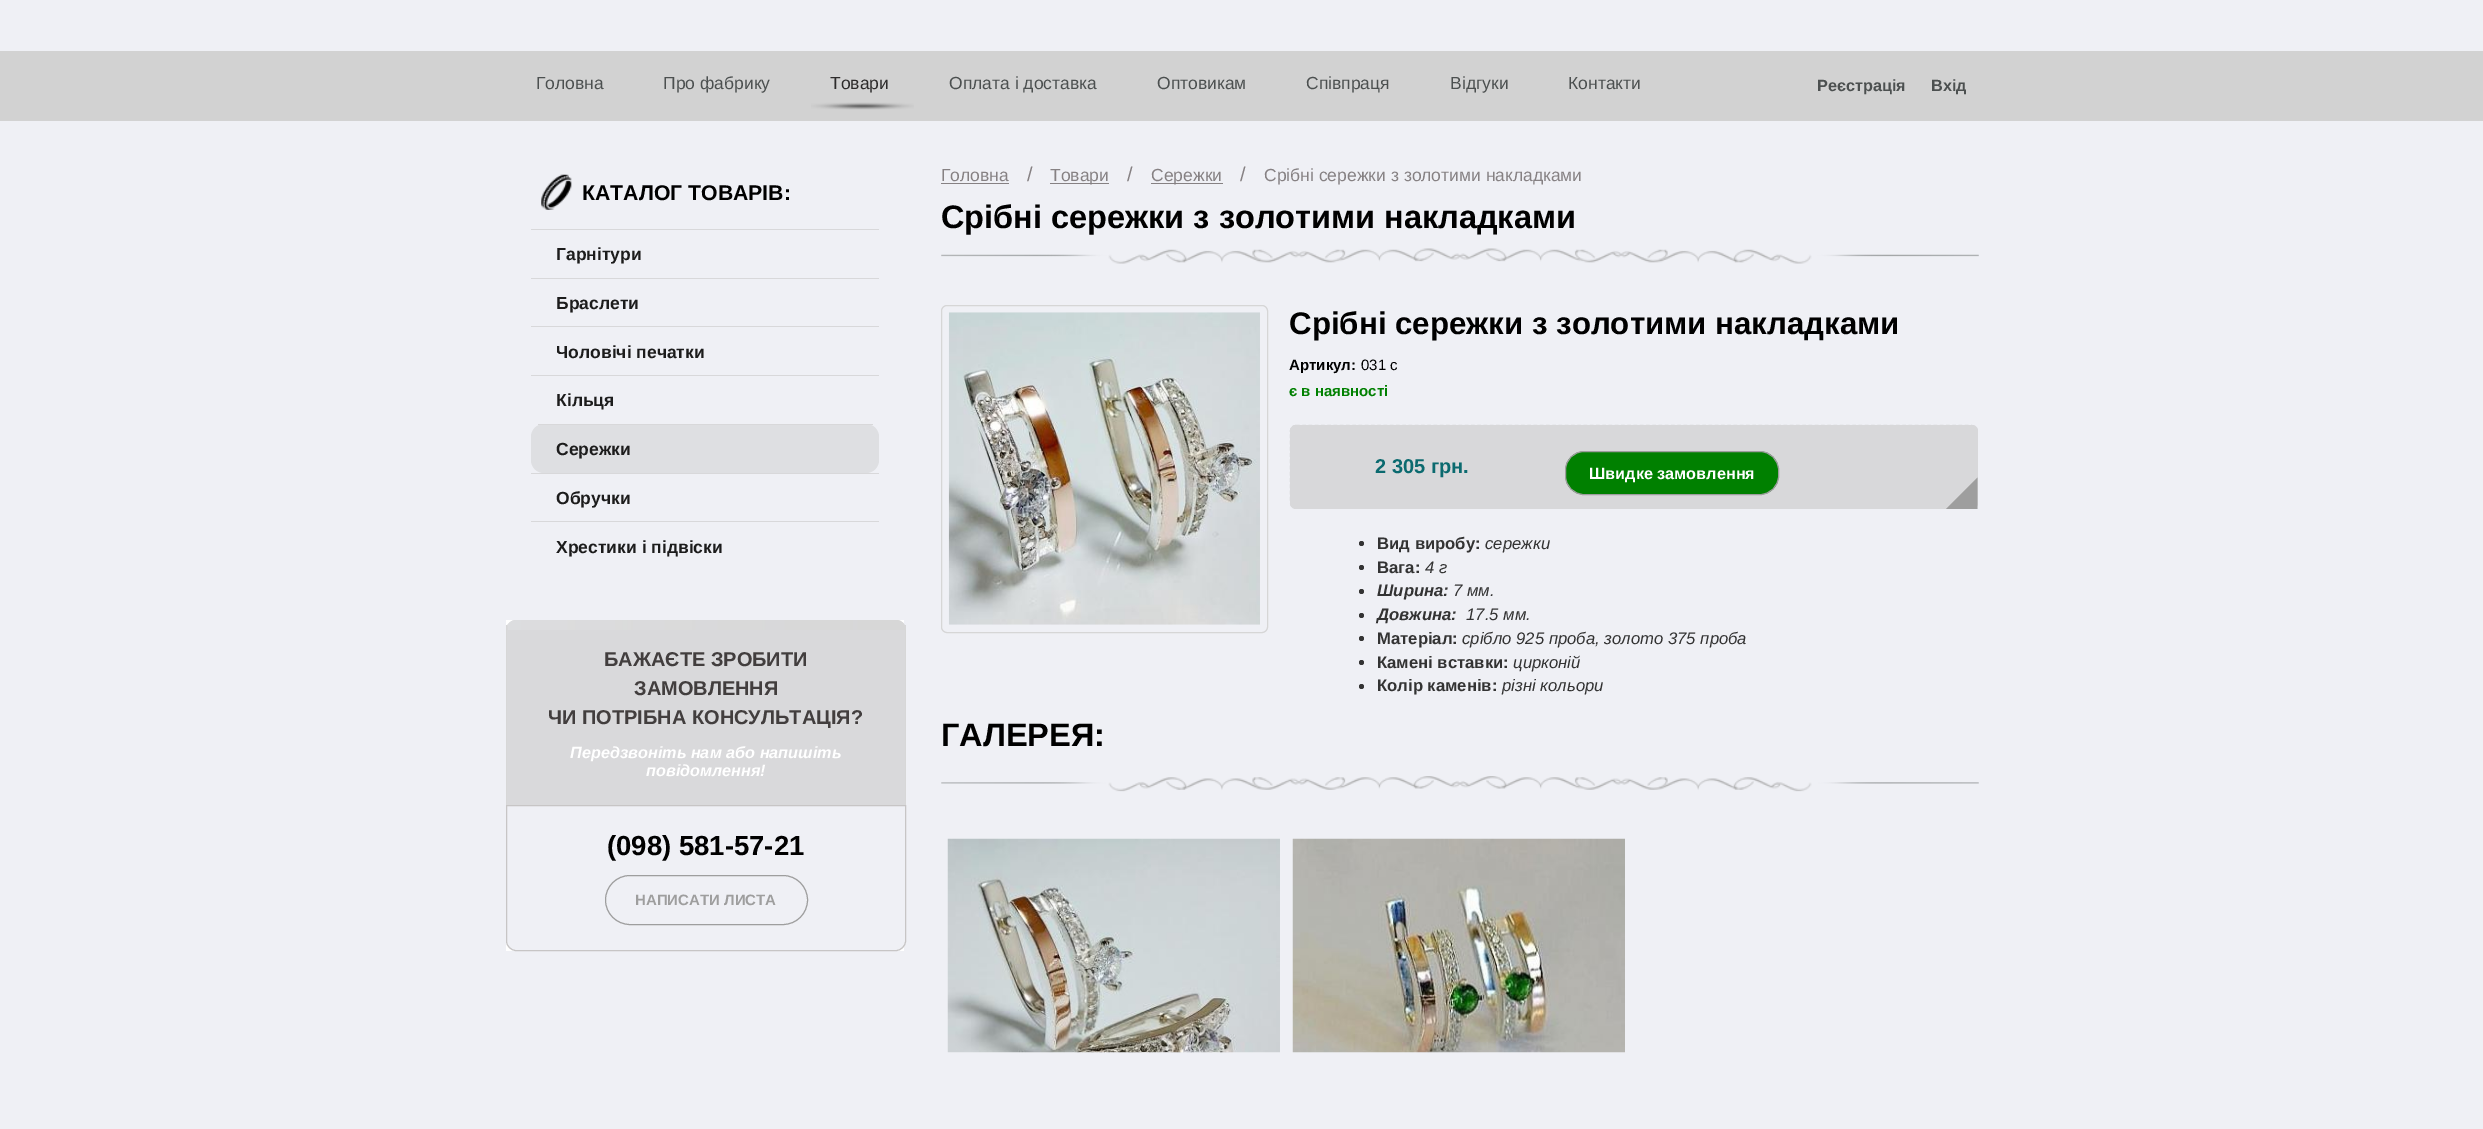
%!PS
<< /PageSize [2483 1129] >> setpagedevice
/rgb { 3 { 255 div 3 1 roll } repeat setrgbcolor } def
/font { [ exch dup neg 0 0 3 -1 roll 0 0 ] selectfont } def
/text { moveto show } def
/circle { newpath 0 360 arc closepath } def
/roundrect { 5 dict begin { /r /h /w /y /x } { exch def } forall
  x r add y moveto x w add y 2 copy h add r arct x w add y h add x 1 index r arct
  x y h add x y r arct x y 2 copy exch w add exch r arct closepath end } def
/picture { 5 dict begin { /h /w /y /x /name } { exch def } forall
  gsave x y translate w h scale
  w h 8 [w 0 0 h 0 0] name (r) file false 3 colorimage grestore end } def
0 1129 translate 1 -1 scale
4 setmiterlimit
239 240 245 rgb
0 0 2483 1129 rectfill
210 210 210 rgb
0 51 2483 70 rectfill
(img_01.rgb) 811 102 103 8 picture
(img_02.rgb) 541 174 31 36 picture
216 216 218 rgb
532 229 moveto 347 0 rlineto 0 1 rlineto -348 0 rlineto 0 -0.5 0.5 -1 1 -1 rcurveto closepath fill
531 278 348 1 rectfill
531 326 348 1 rectfill
531 375 348 1 rectfill
222 223 226 rgb
531 424 348 49 13 roundrect fill
216 216 218 rgb
538 424 335 1 rectfill
531 473 348 1 rectfill
531 521 348 1 rectfill
255 255 255 rgb
506 620 398 331 rectfill
217 217 219 rgb
516 620 moveto 380 0 rlineto 5.5 0 10 4.5 10 10 rcurveto 0 175 rlineto -400 0 rlineto 0 -175 rlineto 0 -5.5 4.5 -10 10 -10 rcurveto closepath fill
(img_03.rgb) 508 620 397 10 picture
215 215 215 rgb
905 625 1 180 rectfill
506 625 1 180 rectfill
239 240 245 rgb
506.5 805.5 moveto 399 0 rlineto 0 135.5 rlineto 0 5 -4.5 9.5 -9.5 9.5 rcurveto -380 0 rlineto -5 0 -9.5 -4.5 -9.5 -9.5 rcurveto closepath gsave fill grestore
199 197 197 rgb
stroke
158 158 158 rgb
605.5 875.5 202 49 24.5 roundrect stroke
134 129 131 rgb
941 183 68 1 rectfill
1050 183 59 1 rectfill
1151 183 72 1 rectfill
(img_04.rgb) 941 248 1038 16 picture
214 214 214 rgb
941.5 305.5 326 327 5.5 roundrect stroke
(img_05.rgb) 948 312 312 313 picture
216 216 218 rgb
1290 425 688 84 6 roundrect fill
1.2 setlinewidth
[3.75 2.5] 0 setdash
1296 425.5 moveto 675 0 rlineto 3.5 0 6 2.5 6 5.5 rcurveto 0 71.5 rlineto 0 3 -2.5 5.5 -6 5.5 rcurveto -675 0 rlineto -3 0 -5.5 -2.5 -5.5 -5.5 rcurveto 0 -71.5 rlineto 0 -3 2.5 -5.5 5.5 -5.5 rcurveto closepath stroke
0 128 0 rgb
1565.5 451.5 213 43 18.5 roundrect gsave fill grestore
158 158 158 rgb
1 setlinewidth
[] 0 setdash
stroke
1977.5 509 moveto -31.5 0 rlineto 31.5 -31.5 rlineto closepath fill
51 51 51 rgb
1361.5 543.5 2.5 circle fill
1361.5 567.5 2.5 circle fill
1361.5 591.5 2.5 circle fill
1361.5 615.5 2.5 circle fill
1361.5 638.5 2.5 circle fill
1361.5 662.5 2.5 circle fill
1361.5 686.5 2.5 circle fill
(img_06.rgb) 941 776 1038 16 picture
(img_07.rgb) 947 838 333 215 picture
(img_08.rgb) 1292 838 333 215 picture
/LiberationSans-Regular 17.5 font
76 80 80 rgb
(Головна) 536 89 text
(Про фабрику) 663 89 text
45 43 43 rgb
(Товари) 830 89 text
76 80 80 rgb
(Оплата і доставка) 949 89 text
(Оптовикам) 1157 89 text
(Співпраця) 1306 89 text
(Відгуки) 1450 89 text
(Контакти) 1568 89 text
/LiberationSans-Bold 16.25 font
(Реєстрація) 1817 91 text
(Вхід) 1931 91 text
/LiberationSans-Bold 21.25 font
0 0 0 rgb
(КАТАЛОГ ТОВАРІВ:) 582 200 text
/LiberationSans-Bold 17.5 font
28 28 28 rgb
(Гарнітури) 556 260 text
(Браслети) 556 309 text
(Чоловічі печатки) 556 358 text
(Кільця) 556 406 text
(Сережки) 556 455 text
(Обручки) 556 504 text
(Хрестики і підвіски) 556 553 text
/LiberationSans-Bold 20 font
66 62 62 rgb
(БАЖАЄТЕ ЗРОБИТИ) 604 666 text
(ЗАМОВЛЕННЯ) 634 695 text
(ЧИ ПОТРІБНА КОНСУЛЬТАЦІЯ?) 548 724 text
/LiberationSans-BoldItalic 16.25 font
255 255 255 rgb
(Передзвоніть нам або напишіть) 570 758 text
(повідомлення!) 646 776 text
/LiberationSans-Bold 27.5 font
0 0 0 rgb
(\(098\) 581-57-21) 607 855 text
/LiberationSans-Bold 15 font
158 158 158 rgb
(НАПИСАТИ ЛИСТА) 635 905 text
/LiberationSans-Regular 17.5 font
134 129 131 rgb
(Головна) 941 181 text
/LiberationSans-Regular 20 font
(/) 1027 181 text
/LiberationSans-Regular 17.5 font
(Товари) 1050 181 text
/LiberationSans-Regular 20 font
(/) 1127 181 text
/LiberationSans-Regular 17.5 font
(Сережки) 1151 181 text
/LiberationSans-Regular 20 font
(/) 1240 181 text
/LiberationSans-Regular 17.5 font
(Срібні сережки з золотими накладками) 1264 181 text
/LiberationSans-Bold 32.5 font
0 0 0 rgb
(Срібні сережки з золотими накладками) 941 228 text
/LiberationSans-Bold 31.25 font
(Срібні сережки з золотими накладками) 1289 334 text
/LiberationSans-Bold 15 font
(Артикул:) 1289 370 text
/LiberationSans-Regular 15 font
(031 с) 1361 370 text
/LiberationSans-Bold 15 font
0 128 0 rgb
(є в наявності) 1289 396 text
/LiberationSans-Bold 20 font
11 106 111 rgb
(2 305 грн.) 1375 473 text
/LiberationSans-Bold 16.25 font
255 255 255 rgb
(Швидке замовлення) 1589 479 text
/LiberationSans-Bold 16.7 font
51 51 51 rgb
(Вид виробу:) 1377 549 text
/LiberationSans-Italic 16.7 font
(сережки) 1485 549 text
/LiberationSans-Bold 16.7 font
(Вага:) 1377 573 text
/LiberationSans-Italic 16.7 font
(4 г) 1425 573 text
/LiberationSans-BoldItalic 16.7 font
(Ширина:) 1377 596 text
/LiberationSans-Italic 16.7 font
(7 мм.) 1453 596 text
/LiberationSans-BoldItalic 16.7 font
(Довжина:) 1377 620 text
/LiberationSans-Italic 16.7 font
(17.5 мм.) 1466 620 text
/LiberationSans-Bold 16.7 font
(Матеріал:) 1377 644 text
/LiberationSans-Italic 16.7 font
(срібло 925 проба, золото 375 проба) 1462 644 text
/LiberationSans-Bold 16.7 font
(Камені вставки:) 1377 668 text
/LiberationSans-Italic 16.7 font
(цирконій) 1513 668 text
/LiberationSans-Bold 16.7 font
(Колір каменів:) 1377 691 text
/LiberationSans-Italic 16.7 font
(різні кольори) 1502 691 text
/LiberationSans-Bold 32.5 font
0 0 0 rgb
(ГАЛЕРЕЯ:) 941 746 text
showpage
